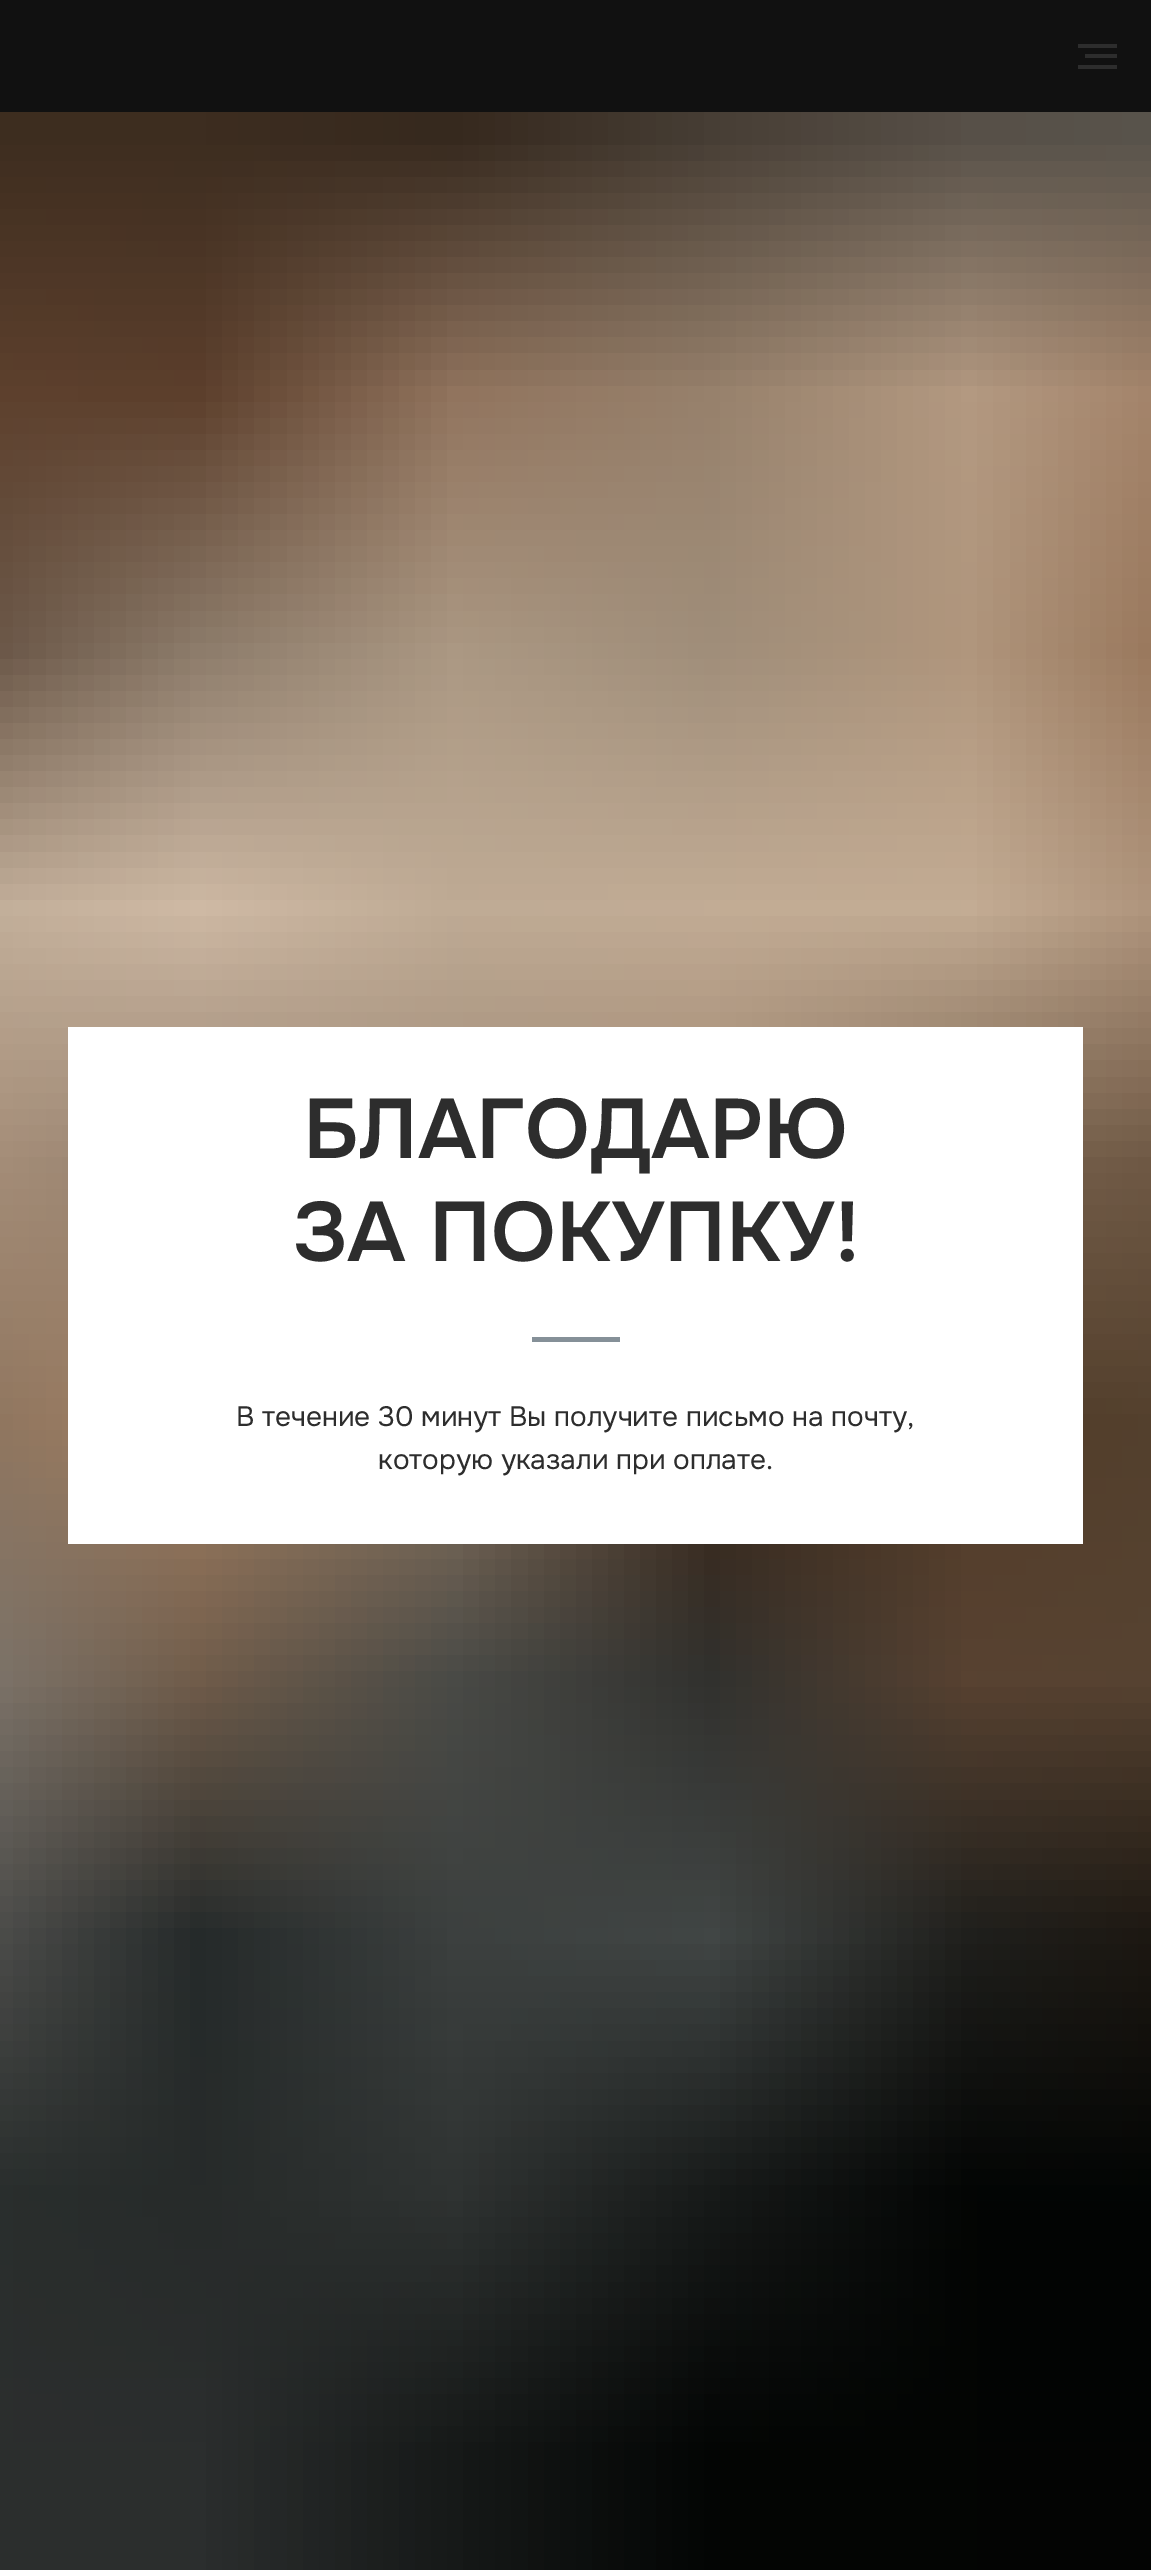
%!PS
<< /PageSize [1151 2570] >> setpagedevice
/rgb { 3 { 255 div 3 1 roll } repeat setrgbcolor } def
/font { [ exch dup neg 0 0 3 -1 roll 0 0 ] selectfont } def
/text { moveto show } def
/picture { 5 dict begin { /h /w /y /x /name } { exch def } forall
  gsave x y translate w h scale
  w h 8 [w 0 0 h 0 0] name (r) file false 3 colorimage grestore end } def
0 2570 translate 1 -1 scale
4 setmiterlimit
255 255 255 rgb
0 0 1151 2570 rectfill
17 17 17 rgb
0 0 1151 112 rectfill
45 45 45 rgb
1078 44 39 4 rectfill
1085 54 32 4 rectfill
1078 65 39 4 rectfill
(img_01.rgb) 0 112 1151 2458 picture
255 255 255 rgb
68 1027 1015 517 rectfill
133 144 152 rgb
532 1337 88 5 rectfill
/Onest-SemiBold 84 font
45 45 45 rgb
(БЛАГОДАРЮ) 303 1158 text
(ЗА ПОКУПКУ!) 293 1261 text
/Onest-Regular 28 font
(В течение 30 минут Вы получите письмо на почту,) 236 1426 text
(которую указали при оплате.) 378 1469 text
showpage
